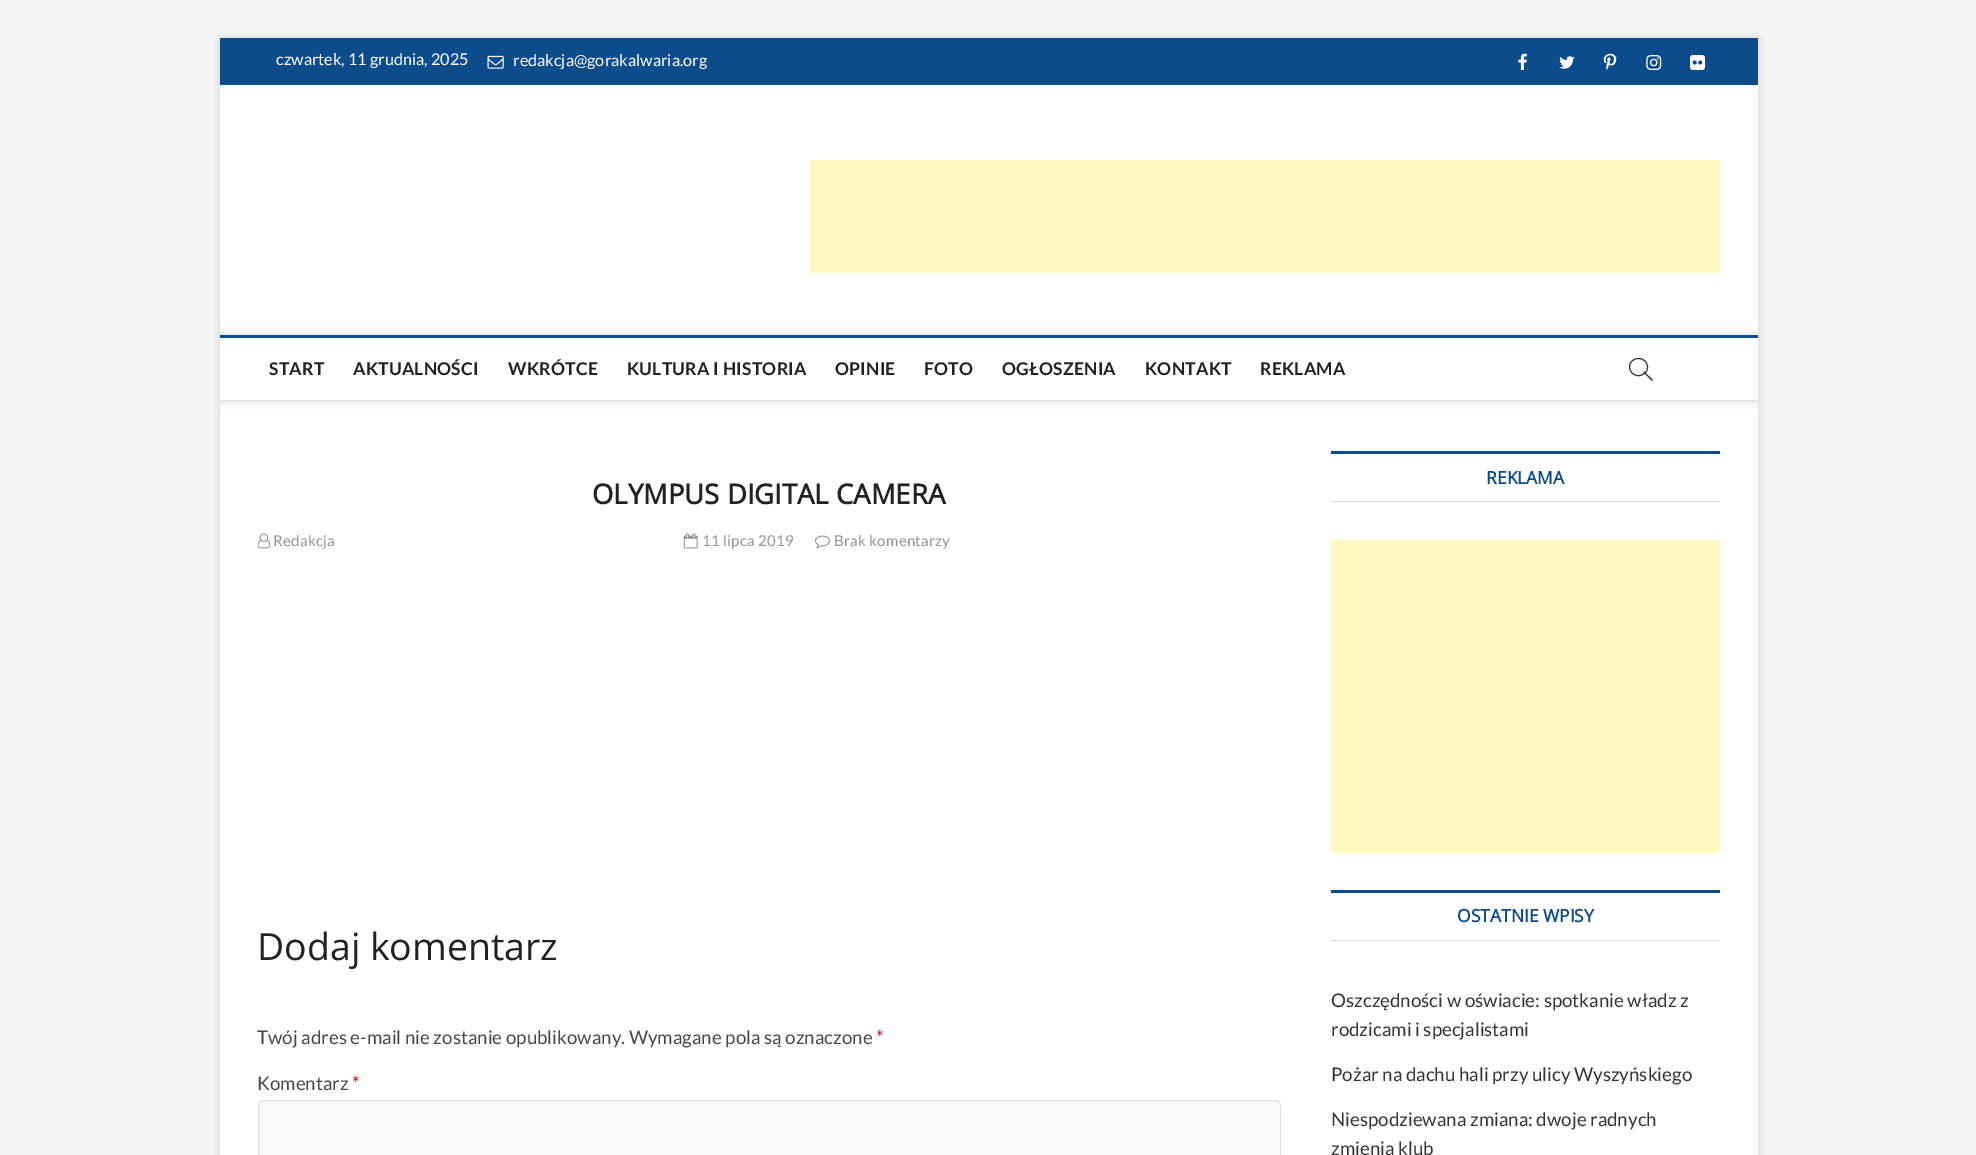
%!PS
<< /PageSize [1976 1155] /PageUsesTransparency true >> setpagedevice
/rgb { 3 { 255 div 3 1 roll } repeat setrgbcolor } def
/font { [ exch dup neg 0 0 3 -1 roll 0 0 ] selectfont } def
/text { moveto show } def
/alpha { dup .setfillconstantalpha .setstrokeconstantalpha } def
/roundrect { 5 dict begin { /r /h /w /y /x } { exch def } forall
  x r add y moveto x w add y 2 copy h add r arct x w add y h add x 1 index r arct
  x y h add x y r arct x y 2 copy exch w add exch r arct closepath end } def
/shadow { 12 dict begin { /a /b /q /h /w /y /x } { exch def } forall gsave /was 0 def
  9 -2 -9 { dup b mul 4 div /e exch def 1 sub .425 mul 2.718 exch exp 1 add a .99 .min exch div /now exch def
    1 1 now sub 1 was sub div sub alpha /was now def
    w h .min e 2 mul add 0 gt { x e sub y e sub w e 2 mul add h e 2 mul add
      q e add b .6 mul add w h .min 2 div e add .min 0 .max roundrect fill } if } for grestore end } def
/picture { 5 dict begin { /h /w /y /x /name } { exch def } forall
  gsave x y translate w h scale
  w h 8 [w 0 0 h 0 0] name (r) file false 3 colorimage grestore end } def
0 .pushpdf14devicefilter
0 1155 translate 1 -1 scale
4 setmiterlimit
244 244 244 rgb
0 0 1976 1155 rectfill
0 0 0 rgb
220 39 1538 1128 0 4 0.15 shadow
255 255 255 rgb
220 85 1538 1070 rectfill
12 76 138 rgb
220 38 1538 47 rectfill
(img_01.rgb) 487 55 17 14 picture
(img_02.rgb) 1518 53 9 17 picture
(img_03.rgb) 1559 56 16 13 picture
(img_04.rgb) 1603 53 14 17 picture
(img_05.rgb) 1646 55 16 15 picture
(img_06.rgb) 1690 55 15 15 picture
255 249 192 rgb
810 160 910 113 rectfill
gsave
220 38 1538 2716 rectclip
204 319 moveto 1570 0 rlineto 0 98 rlineto -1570 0 rlineto closepath 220 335 moveto 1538 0 rlineto 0 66 rlineto -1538 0 rlineto closepath eoclip newpath
0 0 0 rgb
220 335 1538 66 0 5 0.15 shadow
grestore
12 76 138 rgb
220 335 1538 3 rectfill
221 221 221 rgb
220 400 1538 1 rectfill
51 51 51 rgb
1629.5 358.5 18 17 8.5 roundrect stroke
1643.5 372.5 moveto 0.5 -1 rlineto 9 8.5 rlineto -1 1 rlineto closepath fill
(img_07.rgb) 258 533 13 16 picture
(img_08.rgb) 683 533 15 16 picture
(img_09.rgb) 815 535 15 14 picture
250 250 250 rgb
258.5 1100.5 1022 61 5.5 roundrect gsave fill grestore
225 225 225 rgb
stroke
12 76 138 rgb
1331 451 389 3 rectfill
221 221 221 rgb
1331 501 389 1 rectfill
255 249 192 rgb
1331 540 389 313 rectfill
12 76 138 rgb
1331 890 389 3 rectfill
221 221 221 rgb
1331 940 389 1 rectfill
/Lato-Regular 16.25 font
255 255 255 rgb
(czwartek, 11 grudnia, 2025) 276 65 text
(redakcja@gorakalwaria.org) 513 66 text
/Lato-Bold 17.5 font
34 34 34 rgb
269 375 moveto 0.25 0 (START) ashow
353 375 moveto 0.25 0 (AKTUALNOŚCI) ashow
508 375 moveto 0.25 0 (WKRÓTCE) ashow
627 375 moveto 0.25 0 (KULTURA I HISTORIA) ashow
835 375 moveto 0.25 0 (OPINIE) ashow
924 375 moveto 0.25 0 (FOTO) ashow
1002 375 moveto 0.25 0 (OGŁOSZENIA) ashow
1145 375 moveto 0.25 0 (KONTAKT) ashow
1260 375 moveto 0.25 0 (REKLAMA) ashow
/OpenSans-Bold 27.5 font
(OLYMPUS DIGITAL CAMERA) 592 504 text
/Lato-Regular 15 font
148 148 148 rgb
273 546 moveto 0.25 0 (Redakcja) ashow
702 546 moveto 0.25 0 (11 lipca 2019) ashow
834 546 moveto 0.25 0 (Brak komentarzy) ashow
/OpenSans-Regular 37.5 font
34 34 34 rgb
(Dodaj komentarz) 257 960 text
/Lato-Regular 18.75 font
72 72 72 rgb
(Twój adres e-mail nie zostanie opublikowany. Wymagane pola są oznaczone) 257 1044 text
255 0 0 rgb
(*) 876 1044 text
72 72 72 rgb
(Komentarz) 257 1090 text
255 0 0 rgb
(*) 352 1090 text
/OpenSans-Bold 17.5 font
12 76 138 rgb
(REKLAMA) 1486 484 text
(OSTATNIE WPISY) 1457 922 text
/Lato-Regular 18.75 font
52 52 52 rgb
(Oszczędności w oświacie: spotkanie władz z) 1331 1007 text
(rodzicami i specjalistami) 1331 1036 text
(Pożar na dachu hali przy ulicy Wyszyńskiego) 1331 1081 text
(Niespodziewana zmiana: dwoje radnych) 1331 1126 text
(zmienia klub) 1331 1155 text
.poppdf14devicefilter showpage
